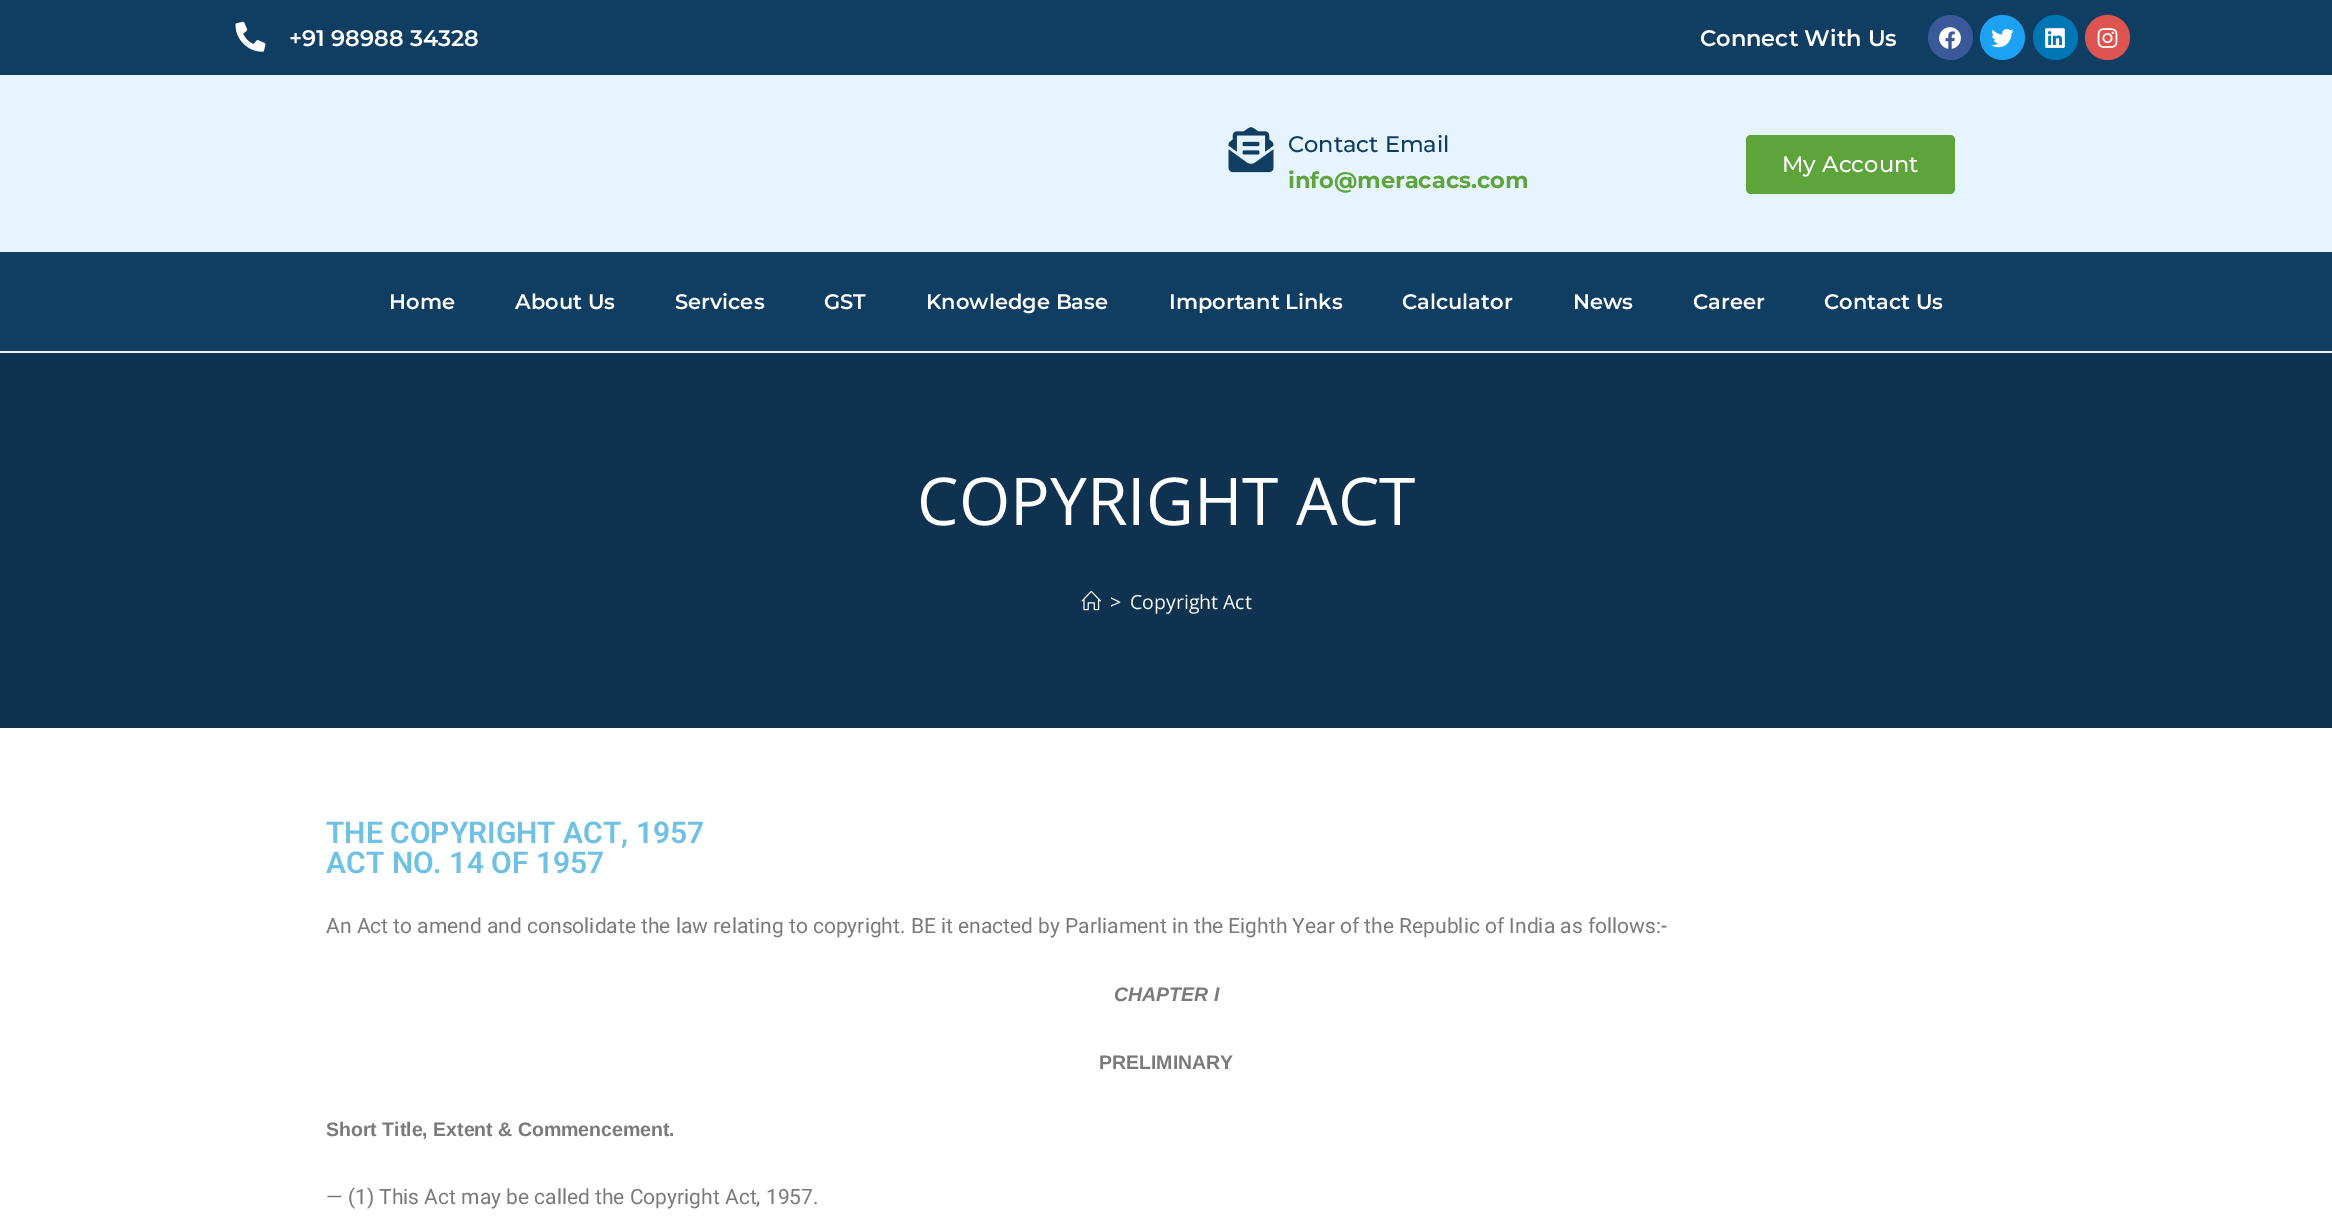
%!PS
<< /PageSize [2332 1231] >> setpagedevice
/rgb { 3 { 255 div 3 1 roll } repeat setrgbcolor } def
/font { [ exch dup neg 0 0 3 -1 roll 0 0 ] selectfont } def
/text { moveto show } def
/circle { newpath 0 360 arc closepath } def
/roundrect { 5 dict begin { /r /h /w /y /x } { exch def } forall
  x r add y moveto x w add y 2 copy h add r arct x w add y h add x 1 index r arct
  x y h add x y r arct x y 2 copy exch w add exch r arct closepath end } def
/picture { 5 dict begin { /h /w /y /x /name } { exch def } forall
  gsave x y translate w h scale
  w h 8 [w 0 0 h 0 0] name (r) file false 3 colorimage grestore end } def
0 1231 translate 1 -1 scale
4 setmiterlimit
255 255 255 rgb
0 0 2332 1231 rectfill
241 241 241 rgb
0 351 2332 2 rectfill
16 62 99 rgb
0 0 2332 75 rectfill
(img_01.rgb) 235 21 31 31 picture
59 89 152 rgb
1950.5 37.5 22.5 circle fill
(img_02.rgb) 1939 27 22 22 picture
29 161 242 rgb
2002.5 37.5 22.5 circle fill
(img_03.rgb) 1991 28 23 20 picture
0 119 181 rgb
2055.5 37.5 22.5 circle fill
(img_04.rgb) 2045 28 20 20 picture
221 84 80 rgb
2107.5 37.5 22.5 circle fill
(img_05.rgb) 2097 28 21 20 picture
229 244 255 rgb
0 75 2332 177 rectfill
(img_06.rgb) 1228 127 46 46 picture
93 164 58 rgb
1746 135 209 59 5 roundrect fill
16 62 99 rgb
0 252 2332 99 rectfill
14 50 79 rgb
0 353 2332 375 rectfill
(img_07.rgb) 1081 590 20 21 picture
/Montserrat-SemiBold 22.5 font
255 255 255 rgb
(+91 98988 34328) 289 46 text
(Connect With Us) 1700 46 text
/Montserrat-Medium 22.5 font
16 62 99 rgb
(Contact Email) 1288 152 text
/Montserrat-Bold 22.5 font
93 164 58 rgb
(info@meracacs.com) 1288 188 text
/Montserrat-Medium 22.5 font
255 255 255 rgb
(My Account) 1782 172 text
/Montserrat-SemiBold 21 font
(Home) 389 309 text
(About Us) 515 309 text
(Services) 675 309 text
(GST) 824 309 text
(Knowledge Base) 926 309 text
(Important Links) 1169 309 text
(Calculator) 1402 309 text
(News) 1573 309 text
(Career) 1693 309 text
(Contact Us) 1824 309 text
/OpenSans-Regular 66 font
(COPYRIGHT ACT) 917 525 text
/OpenSans-Regular 19.5 font
(>) 1110 609 text
(Copyright Act) 1130 609 text
/Roboto-SemiBold 30 font
110 193 228 rgb
(THE COPYRIGHT ACT, 1957) 326 843 text
(ACT NO. 14 OF 1957) 326 873 text
/Roboto-Regular 21 font
122 122 122 rgb
(An Act to amend and consolidate the law relating to copyright. BE it enacted by Parliament in the Eighth Year of the Republic of India as follows:-) 326 933 text
/LiberationSans-BoldItalic 19.5 font
(CHAPTER I) 1114 1001 text
/LiberationSans-Bold 19.5 font
(PRELIMINARY) 1099 1069 text
(Short Title, Extent & Commencement.) 326 1136 text
/Roboto-Regular 21 font
(— \(1\) This Act may be called the Copyright Act, 1957.) 326 1204 text
showpage
